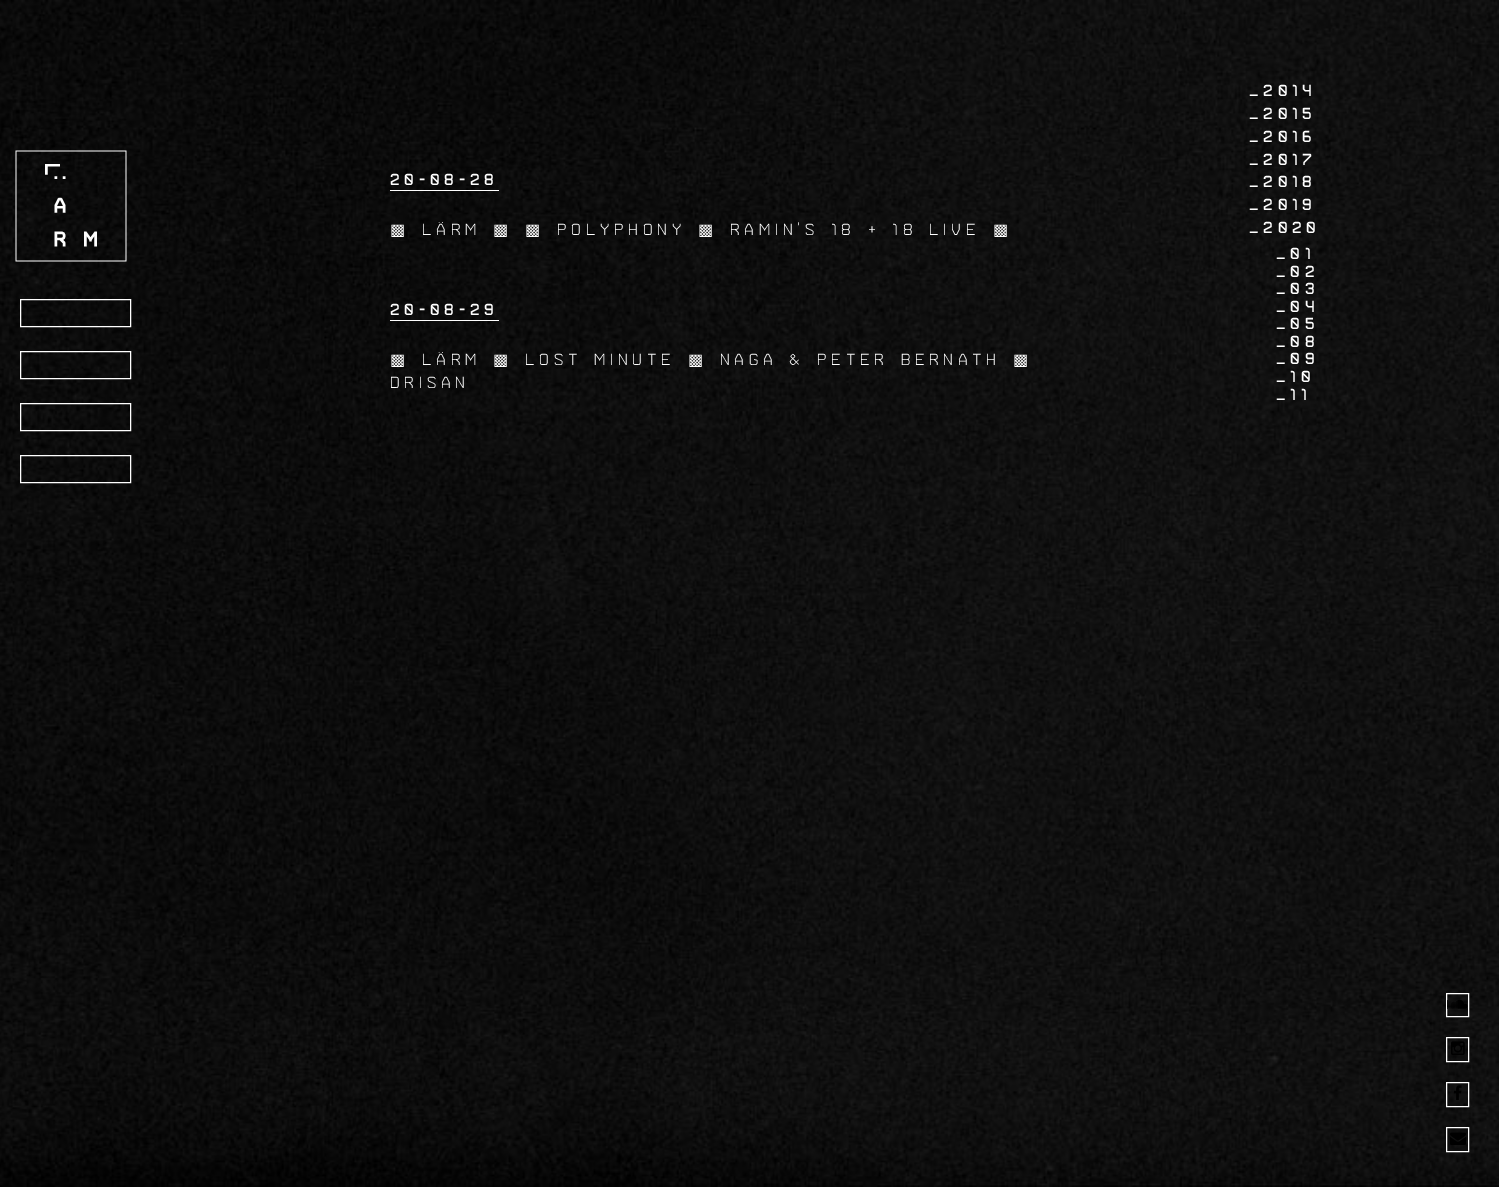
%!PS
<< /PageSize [1499 1187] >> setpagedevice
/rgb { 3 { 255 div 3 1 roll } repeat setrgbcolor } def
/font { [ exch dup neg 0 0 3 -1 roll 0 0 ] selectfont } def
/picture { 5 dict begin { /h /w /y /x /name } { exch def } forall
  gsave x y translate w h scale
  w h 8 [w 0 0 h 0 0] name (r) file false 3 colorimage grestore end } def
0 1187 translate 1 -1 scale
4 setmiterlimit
255 255 255 rgb
0 0 1499 1187 rectfill
(img_01.rgb) 0 0 1499 1187 picture
(img_02.rgb) 15 150 112 112 picture
20.5 299.5 110 27 rectstroke
20.5 351.5 110 27 rectstroke
20.5 403.5 110 27 rectstroke
20.5 455.5 110 27 rectstroke
390 190 109 1 rectfill
390 320 109 1 rectfill
1446.5 993.5 22 23 rectstroke
(img_03.rgb) 1447 1000 21 9 picture
1446.5 1037.5 22 24 rectstroke
(img_04.rgb) 1451 1041 14 14 picture
1446.5 1082.5 22 24 rectstroke
(img_05.rgb) 1454 1085 8 15 picture
1446.5 1127.5 22 24 rectstroke
(img_06.rgb) 1450 1132 16 13 picture
/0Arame-Regular 16 font
390 185 moveto 4.75 0 (20-08-28) ashow
/DejaVuSans-Regular 16 font
390 235 moveto 4.75 0 (▩) ashow
/0Arame-Thin 16 font
422 235 moveto 4.75 0 (LÄRM) ashow
/DejaVuSans-Regular 16 font
493 235 moveto 4.75 0 (▩) ashow
525 235 moveto 4.75 0 (▩) ashow
/0Arame-Thin 16 font
557 235 moveto 4.75 0 (Polyphony) ashow
/DejaVuSans-Regular 16 font
698 235 moveto 4.75 0 (▩) ashow
/0Arame-Thin 16 font
730 235 moveto 4.75 0 (Ramin's 18 + 18 live) ashow
/DejaVuSans-Regular 16 font
993 235 moveto 4.75 0 (▩) ashow
/0Arame-Regular 16 font
390 315 moveto 4.75 0 (20-08-29) ashow
/DejaVuSans-Regular 16 font
390 365 moveto 4.75 0 (▩) ashow
/0Arame-Thin 16 font
422 365 moveto 4.75 0 (LÄRM) ashow
/DejaVuSans-Regular 16 font
493 365 moveto 4.75 0 (▩) ashow
/0Arame-Thin 16 font
525 365 moveto 4.75 0 (Lost Minute) ashow
/DejaVuSans-Regular 16 font
688 365 moveto 4.75 0 (▩) ashow
/0Arame-Thin 16 font
720 365 moveto 4.75 0 (Naga & Peter Bernath) ashow
/DejaVuSans-Regular 16 font
1013 365 moveto 4.75 0 (▩) ashow
/0Arame-Thin 16 font
390 388 moveto 4.75 0 (Drisan) ashow
/0Arame-Regular 16 font
1249 96 moveto 4.75 0 (_2014) ashow
1249 119 moveto 4.75 0 (_2015) ashow
1249 142 moveto 4.75 0 (_2016) ashow
1249 165 moveto 4.75 0 (_2017) ashow
1249 187 moveto 4.75 0 (_2018) ashow
1249 210 moveto 4.75 0 (_2019) ashow
1249 233 moveto 4.75 0 (_2020) ashow
1276 259 moveto 4.75 0 (_01) ashow
1276 277 moveto 4.75 0 (_02) ashow
1276 294 moveto 4.75 0 (_03) ashow
1276 312 moveto 4.75 0 (_04) ashow
1276 329 moveto 4.75 0 (_05) ashow
1276 347 moveto 4.75 0 (_08) ashow
1276 364 moveto 4.75 0 (_09) ashow
1276 382 moveto 4.75 0 (_10) ashow
1276 400 moveto 4.75 0 (_11) ashow
showpage
